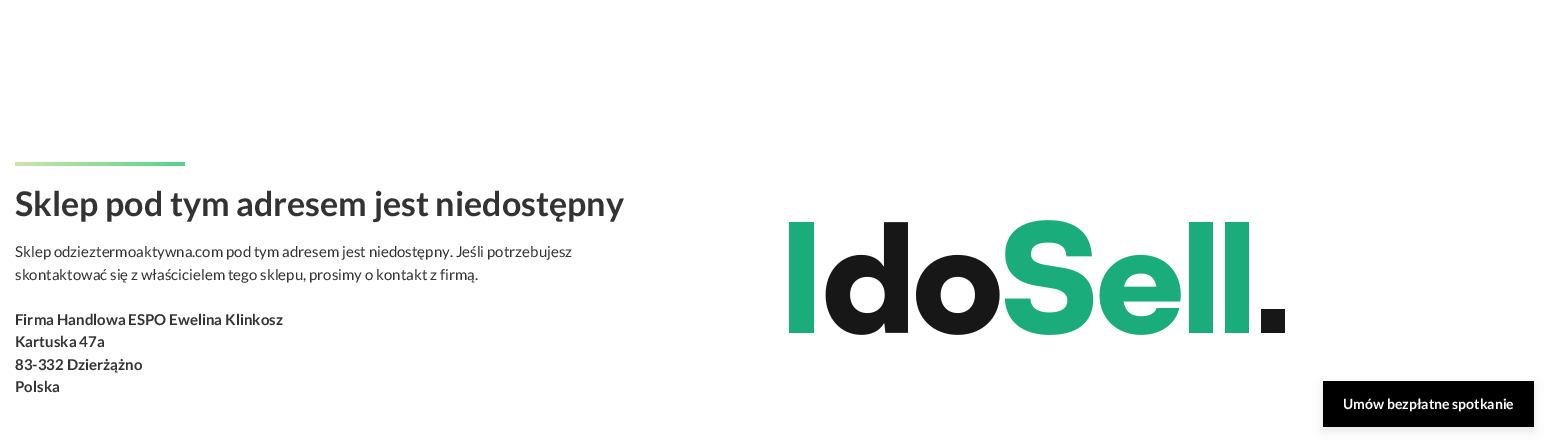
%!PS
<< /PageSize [1554 447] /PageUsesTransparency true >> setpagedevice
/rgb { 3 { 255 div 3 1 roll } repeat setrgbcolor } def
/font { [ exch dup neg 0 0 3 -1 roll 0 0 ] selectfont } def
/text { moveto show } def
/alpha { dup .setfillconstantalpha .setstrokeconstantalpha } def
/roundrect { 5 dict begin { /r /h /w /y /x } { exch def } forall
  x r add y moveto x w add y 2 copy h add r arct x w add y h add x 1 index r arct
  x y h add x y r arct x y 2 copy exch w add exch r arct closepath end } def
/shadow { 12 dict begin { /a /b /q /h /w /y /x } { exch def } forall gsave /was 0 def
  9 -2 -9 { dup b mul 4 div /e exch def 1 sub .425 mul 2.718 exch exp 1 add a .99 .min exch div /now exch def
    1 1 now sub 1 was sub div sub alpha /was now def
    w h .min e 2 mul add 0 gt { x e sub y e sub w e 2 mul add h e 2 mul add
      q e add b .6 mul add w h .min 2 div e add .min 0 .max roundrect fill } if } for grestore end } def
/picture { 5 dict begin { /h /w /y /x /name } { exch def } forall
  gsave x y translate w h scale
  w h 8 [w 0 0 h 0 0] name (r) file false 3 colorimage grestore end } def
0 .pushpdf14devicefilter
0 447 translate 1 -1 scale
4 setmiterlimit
255 255 255 rgb
0 0 1554 447 rectfill
gsave 15 162 moveto 170 0 rlineto 0 4 rlineto -170 0 rlineto closepath clip newpath
<< /ShadingType 2 /ColorSpace /DeviceRGB /Coords [15 164 185 164] /Extend [true true] /Function << /FunctionType 2 /Domain [0 1] /C0 [0.816 0.898 0.678] /C1 [0.322 0.831 0.537] /N 1 >> >> shfill grestore
(img_01.rgb) 789 220 496 115 picture
0 0 0 rgb
1323 385 211 46 0 5 0.1 shadow
1323 381 211 46 rectfill
/Lato-Bold 34 font
51 51 51 rgb
(Sklep pod tym adresem jest niedostępny) 15 216 text
/Lato-Regular 15 font
(Sklep odzieztermoaktywna.com pod tym adresem jest niedostępny. Jeśli potrzebujesz) 15 257 text
(skontaktować się z właścicielem tego sklepu, prosimy o kontakt z firmą.) 15 280 text
/Lato-Bold 15 font
(Firma Handlowa ESPO Ewelina Klinkosz) 15 325 text
(Kartuska 47a) 15 347 text
(83-332 Dzierżążno) 15 370 text
(Polska) 15 392 text
/Lato-Bold 14 font
255 255 255 rgb
(Umów bezpłatne spotkanie) 1343 409 text
.poppdf14devicefilter showpage
